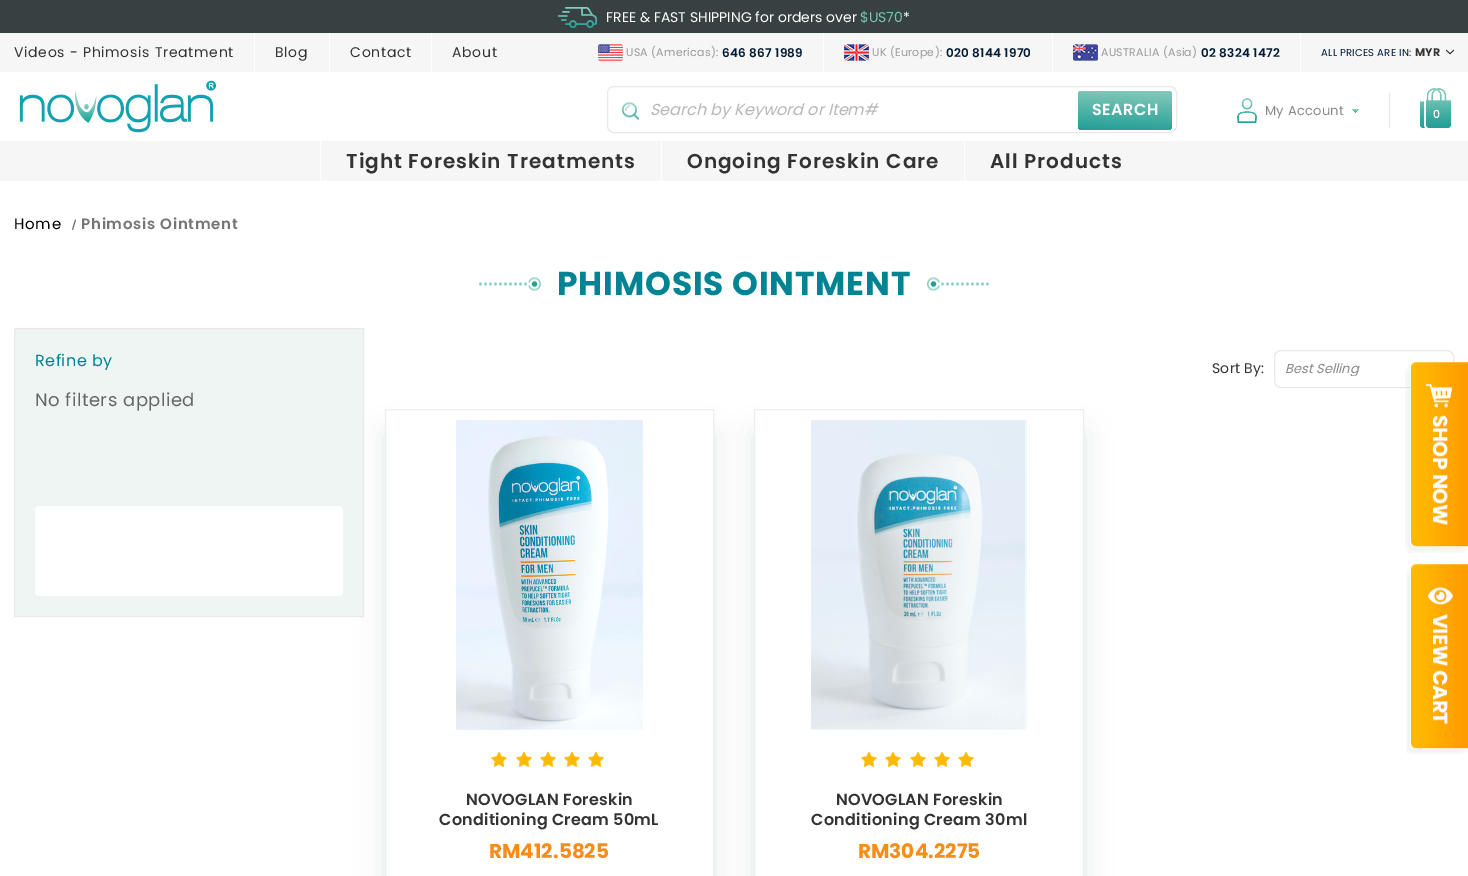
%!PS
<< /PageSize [1468 876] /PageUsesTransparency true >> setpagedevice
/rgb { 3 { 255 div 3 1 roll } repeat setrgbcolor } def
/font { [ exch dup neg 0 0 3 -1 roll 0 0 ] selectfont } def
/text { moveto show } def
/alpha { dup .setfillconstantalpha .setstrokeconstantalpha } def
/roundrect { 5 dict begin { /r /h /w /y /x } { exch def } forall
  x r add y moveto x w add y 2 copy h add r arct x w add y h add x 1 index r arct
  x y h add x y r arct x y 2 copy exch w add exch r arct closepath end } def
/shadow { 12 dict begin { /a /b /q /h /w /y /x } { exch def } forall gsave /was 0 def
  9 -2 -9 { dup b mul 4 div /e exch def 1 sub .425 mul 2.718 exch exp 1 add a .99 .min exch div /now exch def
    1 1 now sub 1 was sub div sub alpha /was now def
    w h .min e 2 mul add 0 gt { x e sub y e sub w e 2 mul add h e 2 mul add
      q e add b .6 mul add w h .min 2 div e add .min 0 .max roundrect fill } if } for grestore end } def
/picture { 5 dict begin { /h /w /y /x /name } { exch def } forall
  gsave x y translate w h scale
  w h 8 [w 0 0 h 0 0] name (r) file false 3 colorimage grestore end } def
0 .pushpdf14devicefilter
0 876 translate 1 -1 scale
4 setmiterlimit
255 255 255 rgb
0 0 1468 876 rectfill
56 65 66 rgb
0 0 1468 33 rectfill
(img_01.rgb) 558 7 39 21 picture
246 246 246 rgb
0 33 1468 39 rectfill
255 255 255 rgb
254 33 1 38 rectfill
329 33 1 38 rectfill
431 33 1 38 rectfill
823 33 1 39 rectfill
(img_02.rgb) 598 44 25 17 picture
1052 33 1 39 rectfill
(img_03.rgb) 844 44 25 17 picture
1300 33 1 39 rectfill
(img_04.rgb) 1073 44 25 17 picture
(img_05.rgb) 1446 49 8 6 picture
(img_06.rgb) 19 80 198 53 picture
233 233 233 rgb
607.5 86.5 569 46 6.5 roundrect stroke
(img_07.rgb) 622 102 17 18 picture
gsave 1078 91 94 39 4 roundrect clip newpath
<< /ShadingType 2 /ColorSpace /DeviceRGB /Coords [1124 132 1126 88] /Extend [true true] /Function << /FunctionType 2 /Domain [0 1] /C0 [0.137 0.62 0.584] /C1 [0.525 0.8 0.737] /N 1 >> >> shfill grestore
229 229 229 rgb
1389 93 1 35 rectfill
(img_08.rgb) 1237 98 20 25 picture
(img_09.rgb) 1352 109 7 4 picture
(img_10.rgb) 1420 88 31 40 picture
246 246 246 rgb
0 141 1468 40 rectfill
255 255 255 rgb
320 141 1 40 rectfill
661 141 1 40 rectfill
964 141 1 40 rectfill
117 117 117 rgb
75 219.5 moveto 1 0.5 rlineto -3 10 rlineto -1 -0.5 rlineto closepath fill
(img_11.rgb) 479 277 62 14 picture
(img_12.rgb) 927 277 62 14 picture
gsave
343 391 moveto 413 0 rlineto 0 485 rlineto -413 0 rlineto closepath 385 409 moveto 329 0 rlineto 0 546 rlineto -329 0 rlineto closepath eoclip newpath
5 34 31 rgb
385 433 329 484 0 13.5 0.1 shadow
grestore
238 245 243 rgb
14.5 328.5 moveto 349 0 rlineto 0 288 rlineto -349 0 rlineto closepath gsave fill grestore
233 233 233 rgb
stroke
255 255 255 rgb
35 506 308 90 4 roundrect fill
233 233 233 rgb
1274.5 350.5 179 37 6.5 roundrect stroke
233 240 238 rgb
385.5 409.5 328 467 rectstroke
(img_13.rgb) 456 420 187 310 picture
(img_14.rgb) 491 752 16 15 picture
(img_14.rgb) 516 752 16 15 picture
(img_14.rgb) 540 752 16 15 picture
(img_14.rgb) 564 752 16 15 picture
(img_14.rgb) 588 752 16 15 picture
gsave
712 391 moveto 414 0 rlineto 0 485 rlineto -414 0 rlineto closepath 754 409 moveto 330 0 rlineto 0 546 rlineto -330 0 rlineto closepath eoclip newpath
5 34 31 rgb
754 433 330 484 0 13.5 0.1 shadow
grestore
754.5 409.5 329 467 rectstroke
(img_15.rgb) 811 420 216 310 picture
(img_14.rgb) 861 752 16 15 picture
(img_14.rgb) 885 752 16 15 picture
(img_14.rgb) 910 752 16 15 picture
(img_14.rgb) 934 752 16 15 picture
(img_14.rgb) 958 752 16 15 picture
(img_16.rgb) 1405 362 63 191 picture
(img_17.rgb) 1406 564 62 190 picture
/Poppins-Regular 14 font
255 255 255 rgb
(FREE & FAST SHIPPING for orders over) 606 22 text
117 197 181 rgb
($US70) 860 22 text
255 255 255 rgb
(*) 903 22 text
51 51 51 rgb
14 57 moveto 0.7 0 (Videos - Phimosis Treatment) ashow
275 57 moveto 0.7 0 (Blog) ashow
350 57 moveto 0.7 0 (Contact) ashow
452 57 moveto 0.7 0 (About) ashow
/Poppins-Regular 11 font
153 153 153 rgb
626 56 moveto 0.25 0 (USA \(Americas\):) ashow
/Poppins-SemiBold 12 font
1 27 52 rgb
722 57 moveto 0.25 0 (646 867 1989) ashow
/Poppins-Regular 11 font
153 153 153 rgb
872 56 moveto 0.25 0 (UK \(Europe\):) ashow
/Poppins-SemiBold 12 font
1 27 52 rgb
946 57 moveto 0.25 0 (020 8144 1970) ashow
/Poppins-Regular 11 font
153 153 153 rgb
1101 56 moveto 0.25 0 (AUSTRALIA \(Asia\)) ashow
/Poppins-SemiBold 12 font
1 27 52 rgb
1201 57 moveto 0.25 0 (02 8324 1472) ashow
/Poppins-Regular 10 font
1321 56 moveto 0.25 0 (ALL PRICES ARE IN:) ashow
/Poppins-Bold 11 font
51 51 51 rgb
1415 56 moveto 0.25 0 (MYR) ashow
/Poppins-Italic 16 font
184 184 184 rgb
(Search by Keyword or Item#) 650 115 text
/Poppins-SemiBold 16 font
255 255 255 rgb
1092 115 moveto 0.5 0 (SEARCH) ashow
/Poppins-Regular 13 font
136 136 136 rgb
1265 115 moveto 0.25 0 (My Account) ashow
/Poppins-Medium 11 font
255 255 255 rgb
(0) 1433 118 text
/Poppins-SemiBold 20 font
51 51 51 rgb
346 168 moveto 1 0 (Tight Foreskin Treatments) ashow
687 168 moveto 1 0 (Ongoing Foreskin Care) ashow
990 168 moveto 1 0 (All Products) ashow
/Poppins-Regular 15 font
0 0 0 rgb
14 229 moveto 0.75 0 (Home) ashow
/Poppins-SemiBold 15 font
117 117 117 rgb
81 229 moveto 0.75 0 (Phimosis Ointment) ashow
/Poppins-Bold 33 font
0 132 148 rgb
557 295 moveto 0.8 0 (PHIMOSIS OINTMENT) ashow
/Poppins-Regular 16 font
35 366 moveto 0.5 0 (Refine by) ashow
/Poppins-Regular 18 font
102 102 102 rgb
35 406 moveto 0.5 0 (No filters applied) ashow
/Poppins-Regular 14 font
51 51 51 rgb
1212 373 moveto 0.25 0 (Sort By:) ashow
gsave
1285 362 158 14 rectclip
/Poppins-Italic 13 font
136 136 136 rgb
(Best Selling) 1285 373 text
grestore
/Poppins-SemiBold 16 font
466 805 moveto 0.25 0 (NOVOGLAN Foreskin) ashow
439 825 moveto 0.25 0 (Conditioning Cream 50mL) ashow
/Poppins-Bold 20 font
247 140 22 rgb
(RM412.5825) 489 858 text
/Poppins-SemiBold 16 font
51 51 51 rgb
836 805 moveto 0.25 0 (NOVOGLAN Foreskin) ashow
811 825 moveto 0.25 0 (Conditioning Cream 30ml) ashow
/Poppins-Bold 20 font
247 140 22 rgb
(RM304.2275) 858 858 text
.poppdf14devicefilter showpage
